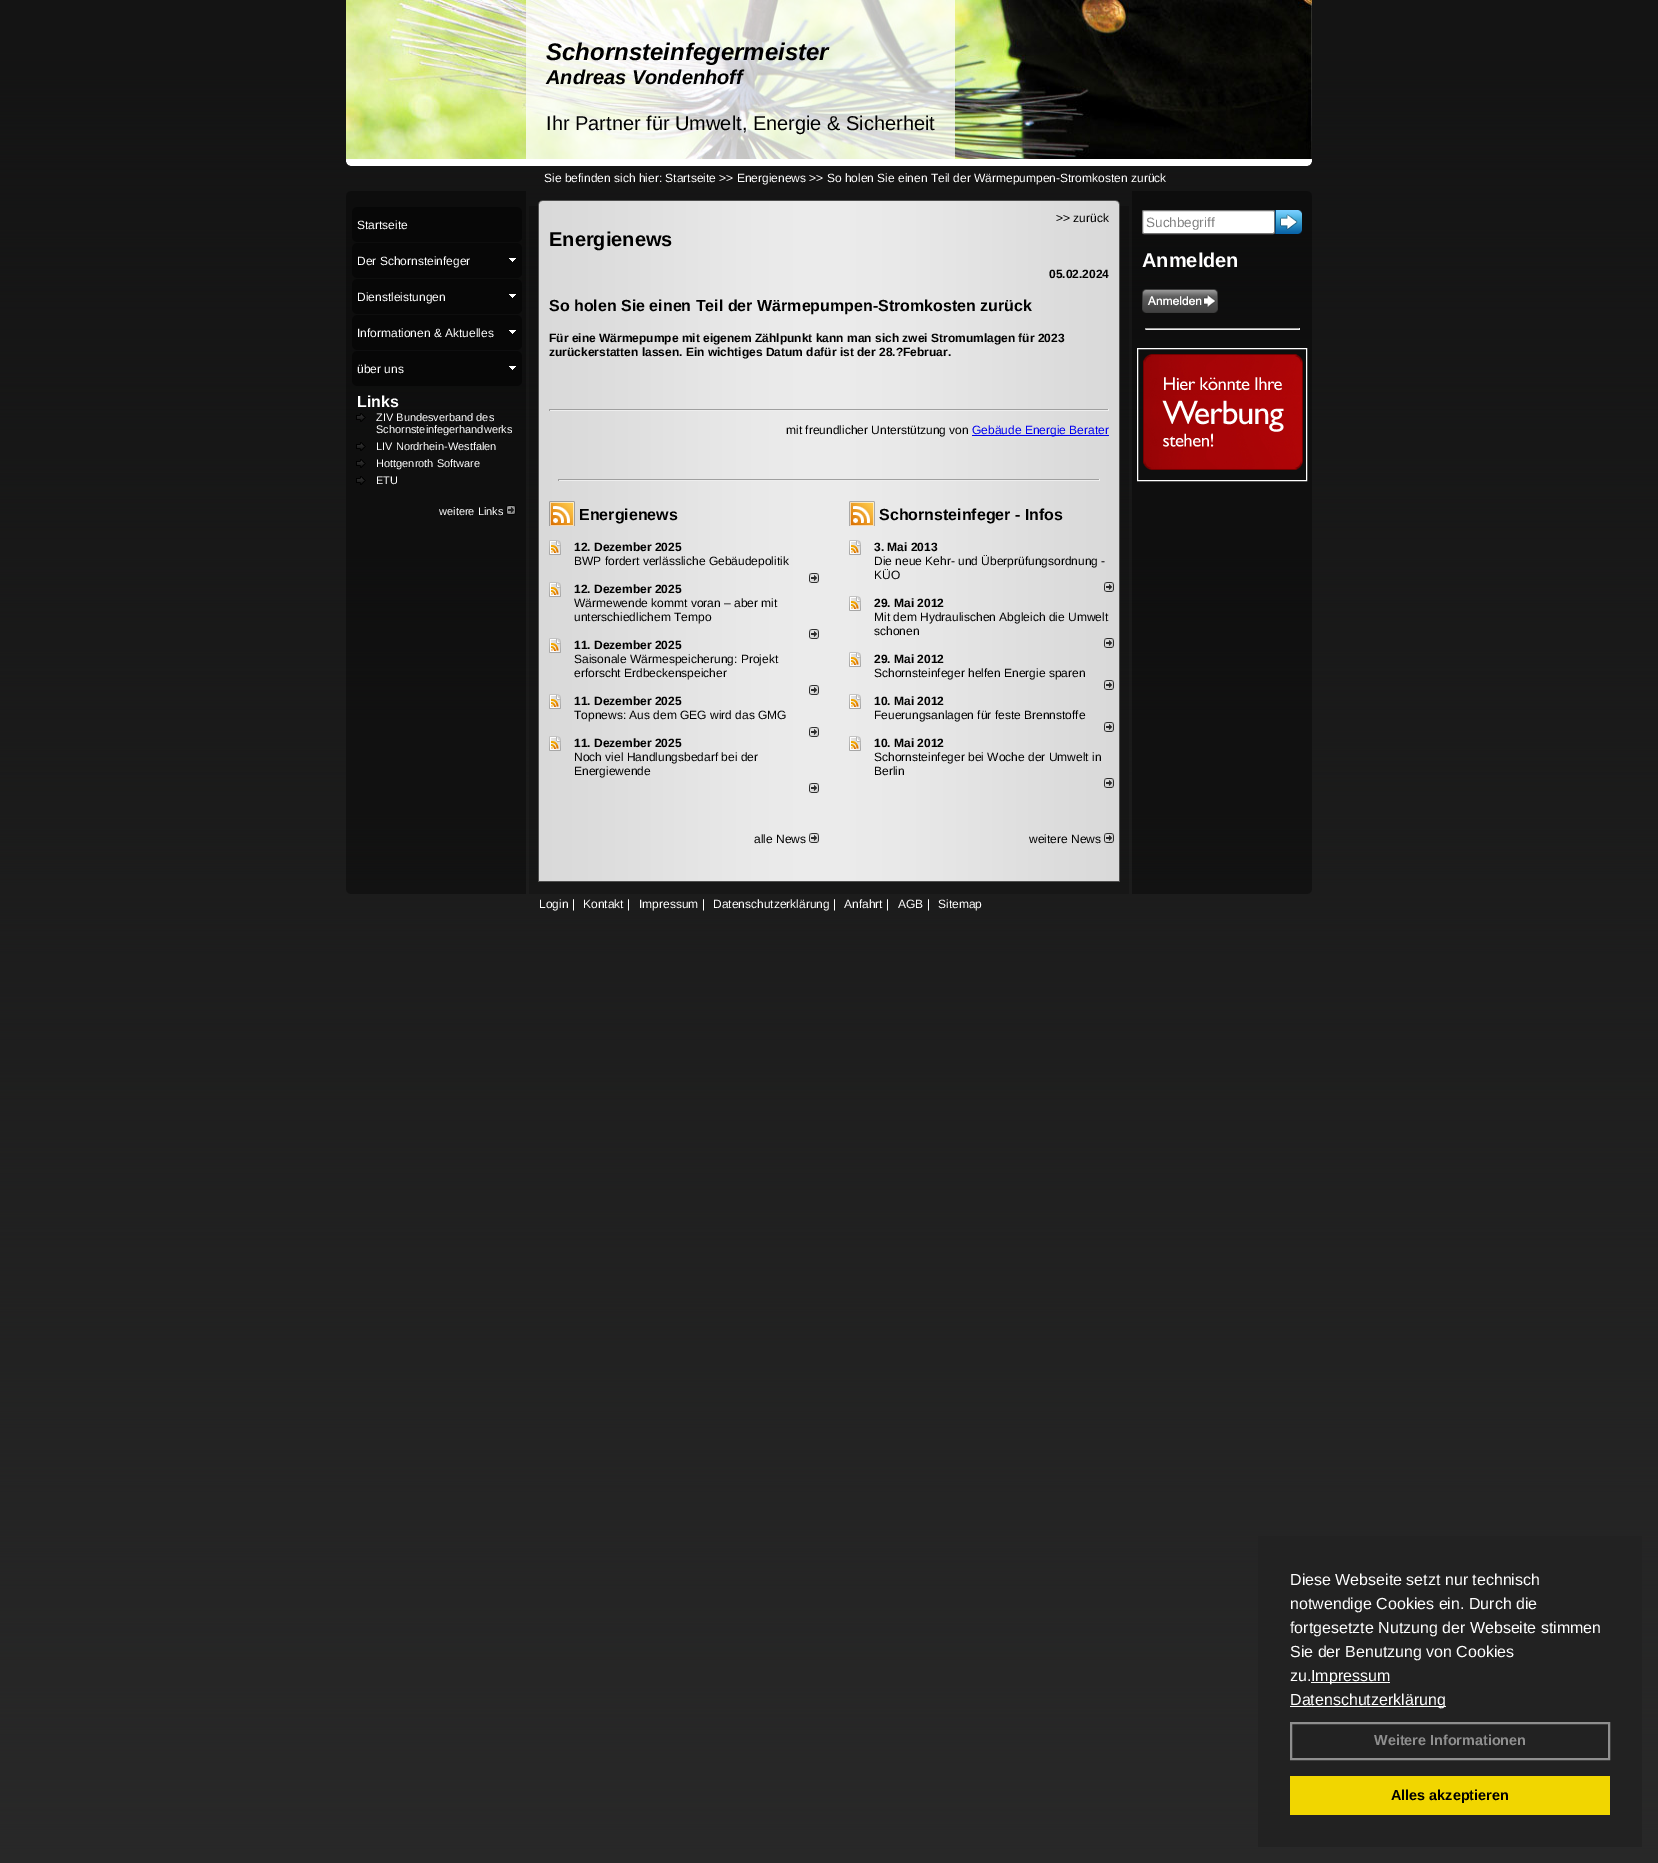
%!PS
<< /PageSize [1658 1863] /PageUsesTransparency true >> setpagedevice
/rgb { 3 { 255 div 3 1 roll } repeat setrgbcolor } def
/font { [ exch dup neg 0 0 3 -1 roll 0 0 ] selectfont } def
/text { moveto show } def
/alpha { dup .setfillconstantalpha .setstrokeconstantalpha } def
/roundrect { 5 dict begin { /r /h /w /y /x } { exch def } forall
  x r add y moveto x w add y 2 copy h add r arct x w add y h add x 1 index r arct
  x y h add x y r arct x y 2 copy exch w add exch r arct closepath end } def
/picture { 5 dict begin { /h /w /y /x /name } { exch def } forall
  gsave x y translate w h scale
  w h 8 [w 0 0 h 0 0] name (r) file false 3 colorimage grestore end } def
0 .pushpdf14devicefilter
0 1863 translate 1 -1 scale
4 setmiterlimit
255 255 255 rgb
0 0 1658 1863 rectfill
(img_01.rgb) 0 0 1658 1863 picture
(img_02.rgb) 346 0 966 159 picture
0.75 alpha
526 0 429 159 rectfill
1 alpha
(img_03.rgb) 346 159 966 7 picture
(img_04.rgb) 346 191 180 15 picture
(img_05.rgb) 538 200 582 6 picture
(img_06.rgb) 1132 191 180 15 picture
0.36 alpha
0 0 0 rgb
346 206 180 673 rectfill
1 alpha
(img_07.rgb) 352 207 170 35 picture
(img_08.rgb) 352 243 170 35 picture
(img_09.rgb) 509 258 7 4 picture
(img_10.rgb) 352 279 170 35 picture
(img_09.rgb) 509 294 7 4 picture
(img_11.rgb) 352 315 170 35 picture
(img_09.rgb) 509 330 7 4 picture
(img_12.rgb) 352 351 170 35 picture
(img_09.rgb) 509 366 7 4 picture
(img_13.rgb) 356 413 10 9 picture
(img_14.rgb) 356 442 10 9 picture
(img_15.rgb) 356 459 10 9 picture
(img_16.rgb) 356 476 10 9 picture
(img_17.rgb) 506 505 10 10 picture
(img_18.rgb) 529 206 600 673 picture
159 159 159 rgb
549 409 560 1 rectfill
238 238 238 rgb
1108 409 1 2 rectfill
549 410 560 1 rectfill
159 159 159 rgb
549 409 1 2 rectfill
0 0 238 rgb
972 435 137 1 rectfill
159 159 159 rgb
558 479 542 1 rectfill
238 238 238 rgb
1099 479 1 2 rectfill
558 480 542 1 rectfill
159 159 159 rgb
558 479 1 2 rectfill
(img_19.rgb) 549 501 26 25 picture
(img_20.rgb) 549 540 12 15 picture
(img_21.rgb) 809 573 10 10 picture
(img_20.rgb) 549 582 12 15 picture
(img_21.rgb) 809 629 10 10 picture
(img_20.rgb) 549 638 12 15 picture
(img_21.rgb) 809 685 10 10 picture
(img_20.rgb) 549 694 12 15 picture
(img_21.rgb) 809 727 10 10 picture
(img_20.rgb) 549 736 12 15 picture
(img_21.rgb) 809 783 10 10 picture
(img_21.rgb) 809 833 10 10 picture
(img_22.rgb) 849 501 26 25 picture
(img_23.rgb) 849 540 12 15 picture
(img_24.rgb) 1104 582 10 10 picture
(img_23.rgb) 849 596 12 15 picture
(img_24.rgb) 1104 638 10 10 picture
(img_23.rgb) 849 652 12 15 picture
(img_24.rgb) 1104 680 10 10 picture
(img_23.rgb) 849 694 12 15 picture
(img_24.rgb) 1104 722 10 10 picture
(img_23.rgb) 849 736 12 15 picture
(img_24.rgb) 1104 778 10 10 picture
(img_24.rgb) 1104 833 10 10 picture
0.36 alpha
0 0 0 rgb
1132 206 180 673 rectfill
1 alpha
255 255 255 rgb
1142.5 210.5 132 23 1.5 roundrect gsave fill grestore
118 118 118 rgb
stroke
(img_25.rgb) 1275 210 27 24 picture
(img_26.rgb) 1142 289 76 24 picture
159 159 159 rgb
1145 328 155 1 rectfill
238 238 238 rgb
1299 328 1 2 rectfill
1145 329 155 1 rectfill
159 159 159 rgb
1145 328 1 2 rectfill
255 255 255 rgb
1137.5 348.5 169 132 rectstroke
(img_27.rgb) 1143 354 160 116 picture
(img_28.rgb) 346 879 180 15 picture
(img_29.rgb) 529 879 600 15 picture
(img_30.rgb) 1132 879 180 15 picture
34 34 34 rgb
1258 1536 384 311 rectfill
255 255 255 rgb
1311 1682 79 1 rectfill
1290 1706 156 1 rectfill
143 143 143 rgb
2 setlinewidth
1291 1723 318 36 rectstroke
241 214 0 rgb
1290 1776 320 39 rectfill
/LiberationSans-BoldItalic 24 font
0 0 0 rgb
(Schornsteinfegermeister) 546 60 text
/LiberationSans-BoldItalic 20 font
(Andreas Vondenhoff) 546 84 text
/LiberationSans-Regular 20 font
(Ihr Partner für Umwelt, Energie & Sicherheit) 546 130 text
/LiberationSans-Regular 12 font
255 255 255 rgb
(Sie befinden sich hier: Startseite >> Energienews >> So holen Sie einen Teil der Wärmepumpen-Stromkosten zurück) 544 182 text
(Startseite) 357 229 text
(Der Schornsteinfeger) 357 265 text
(Dienstleistungen) 357 301 text
(Informationen & Aktuelles) 357 337 text
(über uns) 357 373 text
/LiberationSans-Bold 16 font
(Links) 357 407 text
/LiberationSans-Regular 11 font
(ZIV Bundesverband des) 376 421 text
(Schornsteinfegerhandwerks) 376 433 text
(LIV Nordrhein-Westfalen) 376 450 text
(Hottgenroth Software) 376 467 text
(ETU) 376 484 text
(weitere Links) 439 515 text
/LiberationSans-Regular 12 font
0 0 0 rgb
(>> zurück) 1056 222 text
/LiberationSans-Bold 20 font
(Energienews) 549 246 text
/LiberationSans-Bold 12 font
(05.02.2024) 1049 278 text
/LiberationSans-Bold 16 font
(So holen Sie einen Teil der Wärmepumpen-Stromkosten zurück) 549 311 text
/LiberationSans-Bold 12 font
(Für eine Wärmepumpe mit eigenem Zählpunkt kann man sich zwei Stromumlagen für 2023) 549 342 text
(zurückerstatten lassen. Ein wichtiges Datum dafür ist der 28.?Februar.) 549 356 text
/LiberationSans-Regular 12 font
(mit freundlicher Unterstützung von) 786 434 text
0 0 238 rgb
(Gebäude Energie Berater) 972 434 text
/LiberationSans-Bold 16 font
0 0 0 rgb
(Energienews) 579 520 text
/LiberationSans-Bold 12 font
(12. Dezember 2025) 574 551 text
/LiberationSans-Regular 12 font
(BWP fordert verlässliche Gebäudepolitik) 574 565 text
/LiberationSans-Bold 12 font
(12. Dezember 2025) 574 593 text
/LiberationSans-Regular 12 font
(Wärmewende kommt voran – aber mit) 574 607 text
(unterschiedlichem Tempo) 574 621 text
/LiberationSans-Bold 12 font
(11. Dezember 2025) 574 649 text
/LiberationSans-Regular 12 font
(Saisonale Wärmespeicherung: Projekt) 574 663 text
(erforscht Erdbeckenspeicher) 574 677 text
/LiberationSans-Bold 12 font
(11. Dezember 2025) 574 705 text
/LiberationSans-Regular 12 font
(Topnews: Aus dem GEG wird das GMG) 574 719 text
/LiberationSans-Bold 12 font
(11. Dezember 2025) 574 747 text
/LiberationSans-Regular 12 font
(Noch viel Handlungsbedarf bei der) 574 761 text
(Energiewende) 574 775 text
(alle News) 754 843 text
/LiberationSans-Bold 16 font
(Schornsteinfeger - Infos) 879 520 text
/LiberationSans-Bold 12 font
(3. Mai 2013) 874 551 text
/LiberationSans-Regular 12 font
(Die neue Kehr- und Überprüfungsordnung -) 874 565 text
(KÜO) 874 579 text
/LiberationSans-Bold 12 font
(29. Mai 2012) 874 607 text
/LiberationSans-Regular 12 font
(Mit dem Hydraulischen Abgleich die Umwelt) 874 621 text
(schonen) 874 635 text
/LiberationSans-Bold 12 font
(29. Mai 2012) 874 663 text
/LiberationSans-Regular 12 font
(Schornsteinfeger helfen Energie sparen) 874 677 text
/LiberationSans-Bold 12 font
(10. Mai 2012) 874 705 text
/LiberationSans-Regular 12 font
(Feuerungsanlagen für feste Brennstoffe) 874 719 text
/LiberationSans-Bold 12 font
(10. Mai 2012) 874 747 text
/LiberationSans-Regular 12 font
(Schornsteinfeger bei Woche der Umwelt in) 874 761 text
(Berlin) 874 775 text
(weitere News) 1029 843 text
/LiberationSans-Regular 13.5 font
128 128 128 rgb
(Suchbegriff) 1146 227 text
/LiberationSans-Bold 20 font
255 255 255 rgb
(Anmelden) 1142 267 text
/LiberationSans-Regular 12 font
(Login |) 539 908 text
(Kontakt |) 583 908 text
(Impressum |) 639 908 text
(Datenschutzerklärung |) 713 908 text
(Anfahrt |) 844 908 text
(AGB |) 898 908 text
(Sitemap) 938 908 text
/LiberationSans-Regular 16 font
(Diese Webseite setzt nur technisch) 1290 1585 text
(notwendige Cookies ein. Durch die) 1290 1609 text
(fortgesetzte Nutzung der Webseite stimmen) 1290 1633 text
(Sie der Benutzung von Cookies) 1290 1657 text
(zu.) 1290 1681 text
(Impressum) 1311 1681 text
(Datenschutzerklärung) 1290 1705 text
/LiberationSans-Bold 14.4 font
143 143 143 rgb
(Weitere Informationen) 1374 1745 text
0 0 0 rgb
(Alles akzeptieren) 1391 1800 text
.poppdf14devicefilter showpage
